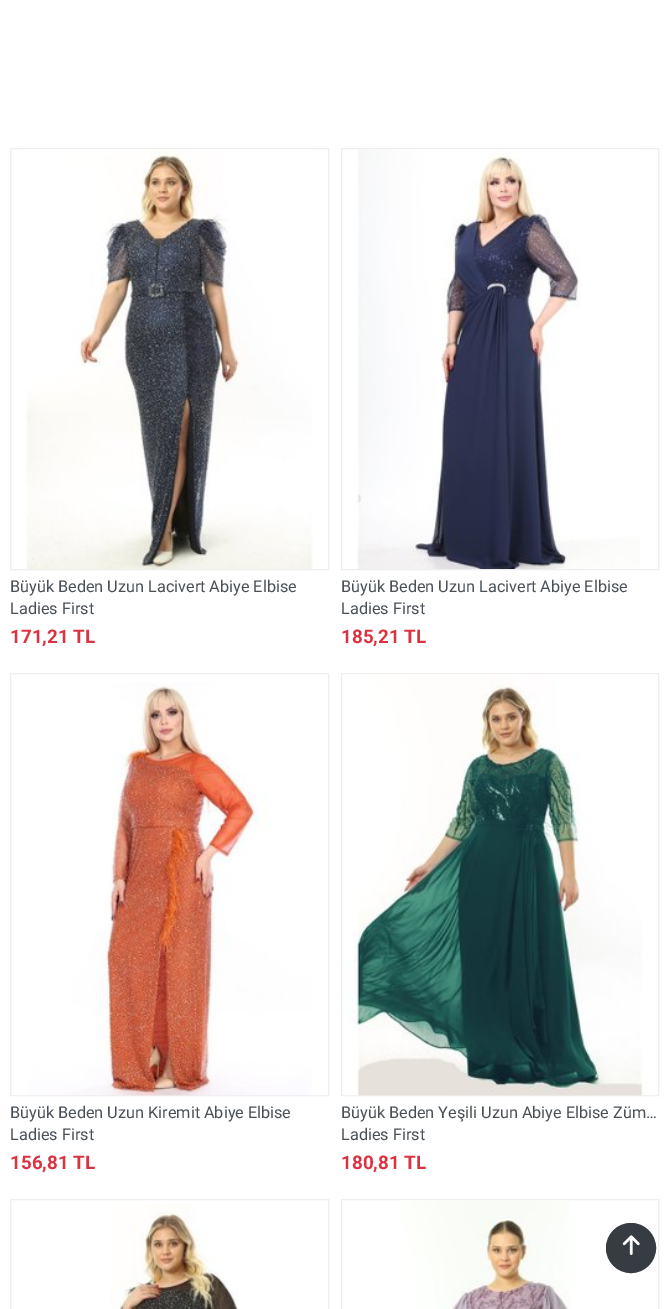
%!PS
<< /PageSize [668 1309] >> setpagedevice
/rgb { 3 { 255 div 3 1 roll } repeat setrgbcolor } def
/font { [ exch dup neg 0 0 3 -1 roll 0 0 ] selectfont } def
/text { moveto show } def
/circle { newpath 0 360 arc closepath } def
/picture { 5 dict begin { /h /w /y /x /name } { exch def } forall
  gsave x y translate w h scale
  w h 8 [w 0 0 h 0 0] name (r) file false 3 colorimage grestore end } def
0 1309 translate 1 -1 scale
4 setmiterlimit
255 255 255 rgb
0 0 668 1309 rectfill
238 238 238 rgb
10.5 148.5 318 421 rectstroke
(img_01.rgb) 26 149 287 420 picture
341.5 148.5 317 421 rectstroke
(img_02.rgb) 356 149 284 420 picture
10.5 673.5 318 422 rectstroke
(img_03.rgb) 12 682 315 414 picture
341.5 673.5 317 422 rectstroke
(img_04.rgb) 343 674 314 422 picture
10.5 1199.5 318 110 rectstroke
(img_05.rgb) 109 1204 130 105 picture
341.5 1199.5 317 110 rectstroke
(img_06.rgb) 402 1200 168 109 picture
54 60 66 rgb
631 1248 24.5 circle gsave fill grestore
stroke
(img_07.rgb) 622 1235 18 20 picture
/Roboto-Regular 16.25 font
73 80 87 rgb
(Büyük Beden Uzun Lacivert Abiye Elbise) 10 592 text
(Ladies First) 10 614 text
/Roboto-Bold 18.75 font
219 49 65 rgb
(171,21 TL) 10 643 text
/Roboto-Regular 16.25 font
73 80 87 rgb
(Büyük Beden Uzun Lacivert Abiye Elbise) 341 592 text
(Ladies First) 341 614 text
/Roboto-Bold 18.75 font
219 49 65 rgb
(185,21 TL) 341 643 text
/Roboto-Regular 16.25 font
73 80 87 rgb
(Büyük Beden Uzun Kiremit Abiye Elbise) 10 1118 text
(Ladies First) 10 1140 text
/Roboto-Bold 18.75 font
219 49 65 rgb
(156,81 TL) 10 1169 text
/Roboto-Regular 16.25 font
73 80 87 rgb
(Büyük Beden Yeşili Uzun Abiye Elbise Züm…) 341 1118 text
(Ladies First) 341 1140 text
/Roboto-Bold 18.75 font
219 49 65 rgb
(180,81 TL) 341 1169 text
showpage
